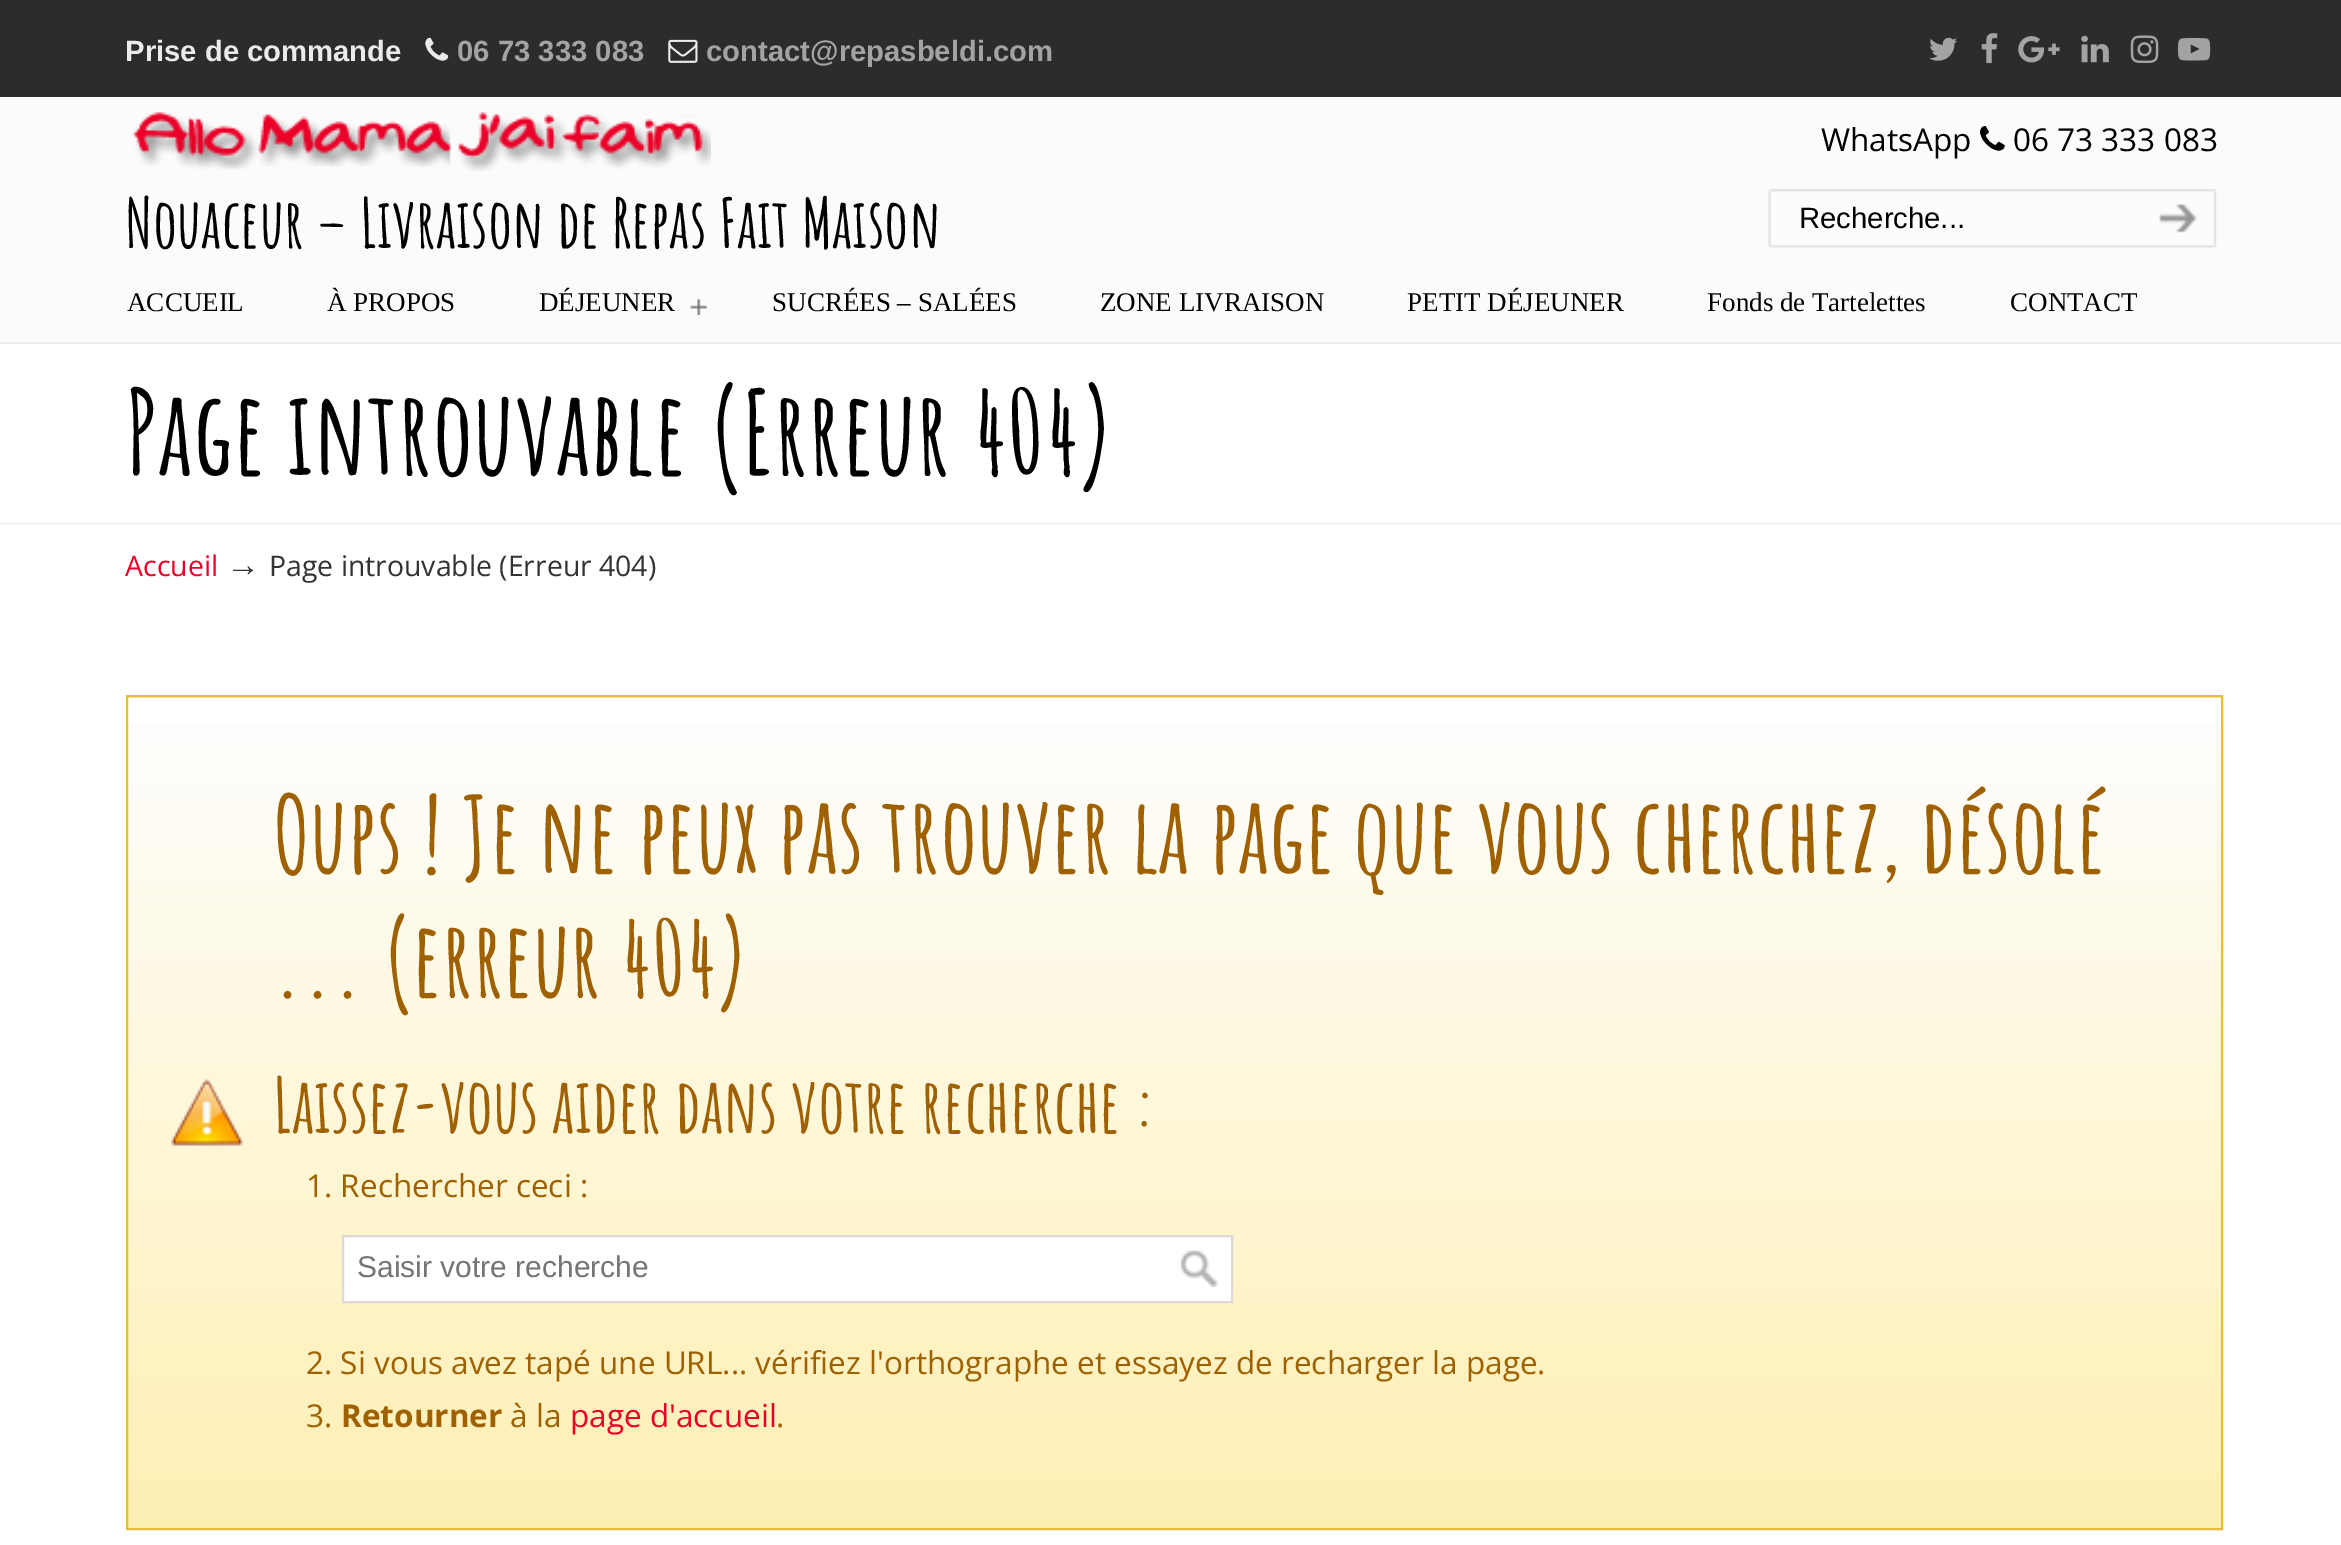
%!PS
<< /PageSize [2341 1545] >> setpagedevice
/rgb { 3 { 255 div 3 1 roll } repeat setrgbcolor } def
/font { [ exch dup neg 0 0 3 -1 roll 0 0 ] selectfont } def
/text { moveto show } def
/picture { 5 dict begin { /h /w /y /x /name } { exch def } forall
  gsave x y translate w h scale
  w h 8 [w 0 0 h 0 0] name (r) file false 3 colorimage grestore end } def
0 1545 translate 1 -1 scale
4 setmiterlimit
251 251 251 rgb
0 0 2341 1545 rectfill
44 44 44 rgb
0 0 2341 97 rectfill
(img_01.rgb) 425 37 24 24 picture
(img_02.rgb) 668 39 30 24 picture
(img_03.rgb) 1929 37 29 24 picture
(img_04.rgb) 1981 33 17 31 picture
(img_05.rgb) 2018 36 42 27 picture
(img_06.rgb) 2081 35 28 28 picture
(img_07.rgb) 2130 35 29 29 picture
(img_08.rgb) 2178 37 33 24 picture
(img_09.rgb) 132 111 579 60 picture
(img_10.rgb) 1980 126 25 25 picture
(img_11.rgb) 1768 189 359 59 picture
(img_12.rgb) 2126 189 91 59 picture
(img_13.rgb) 0 342 2341 2 picture
(img_14.rgb) 690 298 18 17 picture
255 255 255 rgb
0 344 2341 1201 rectfill
(img_15.rgb) 0 522 2341 3 picture
gsave 126 697 moveto 2097 0 rlineto 0 1 rlineto -2097 0 rlineto closepath clip newpath
<< /ShadingType 2 /ColorSpace /DeviceRGB /Coords [1175 -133 1175 698] /Extend [true true] /Function << /FunctionType 2 /Domain [0 1] /C0 [1 1 1] /C1 [0.996 0.937 0.702] /N 1 >> >> shfill grestore
gsave 128 725 moveto 2093 0 rlineto 0 803 rlineto -2093 0 rlineto closepath clip newpath
<< /ShadingType 2 /ColorSpace /DeviceRGB /Coords [1175 698 1175 1528] /Extend [true true] /Function << /FunctionType 2 /Domain [0 1] /C0 [1 1 1] /C1 [0.996 0.937 0.702] /N 1 >> >> shfill grestore
229 188 59 rgb
2 setlinewidth
127 696 2095 833 rectstroke
(img_16.rgb) 171 1079 72 67 picture
255 255 255 rgb
343 1236 moveto 889 0 rlineto 0 66 rlineto -889 0 rlineto closepath gsave fill grestore
221 217 217 rgb
stroke
(img_17.rgb) 1180 1250 38 37 picture
/LiberationSans-Bold 29.25 font
235 235 235 rgb
(Prise de commande) 125 61 text
163 163 163 rgb
(06 73 333 083) 457 61 text
(contact@repasbeldi.com) 706 61 text
/OpenSans-Regular 31.5 font
0 0 0 rgb
(WhatsApp) 1821 151 text
(06 73 333 083) 2013 151 text
/AmaticSC-Bold 67.5 font
(Nouaceur – Livraison de Repas Fait Maison) 125 248 text
/LiberationSans-Regular 29.25 font
(Recherche...) 1799 228 text
/LiberationSerif-Regular 27 font
(ACCUEIL) 127 311 text
(À PROPOS) 327 311 text
(DÉJEUNER) 539 311 text
(SUCRÉES – SALÉES) 772 311 text
(ZONE LIVRAISON) 1100 311 text
(PETIT DÉJEUNER) 1407 311 text
(Fonds de Tartelettes) 1707 311 text
(CONTACT) 2010 311 text
/AmaticSC-Bold 115.5 font
(Page introuvable \(Erreur 404\)) 125 475 text
/OpenSans-Regular 28.4 font
235 0 40 rgb
(Accueil) 125 576 text
/LiberationSerif-Regular 34 font
51 51 51 rgb
(→) 226 576 text
/OpenSans-Regular 28.4 font
(Page introuvable \(Erreur 404\)) 269 576 text
/AmaticSC-Bold 104 font
159 96 0 rgb
(Oups ! Je ne peux pas trouver la page que vous cherchez, désolé) 273 873 text
(... \(erreur 404\)) 273 997 text
/AmaticSC-Bold 75 font
(Laissez-vous aider dans votre recherche :) 273 1133 text
/OpenSans-Regular 31.5 font
(1. Rechercher ceci :) 306 1197 text
/LiberationSans-Regular 30 font
117 117 117 rgb
(Saisir votre recherche) 357 1277 text
/OpenSans-Regular 31.5 font
159 96 0 rgb
(2. Si vous avez tap) 306 1374 text
/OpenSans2-Regular 31.5 font
(é) 573 1374 text
/OpenSans-Regular 31.5 font
(une URL... v) 599 1374 text
/OpenSans2-Regular 31.5 font
(é) 771 1374 text
/OpenSans-Regular 31.5 font
(rifiez l'orthographe et essayez de recharger la page.) 789 1374 text
(3.) 306 1427 text
/OpenSans-Bold 31.5 font
(Retourner) 341 1427 text
/OpenSans2-Regular 31.5 font
(à) 510 1427 text
/OpenSans-Regular 31.5 font
(la) 536 1427 text
235 0 40 rgb
(page d'accueil) 570 1427 text
159 96 0 rgb
(.) 776 1427 text
showpage
